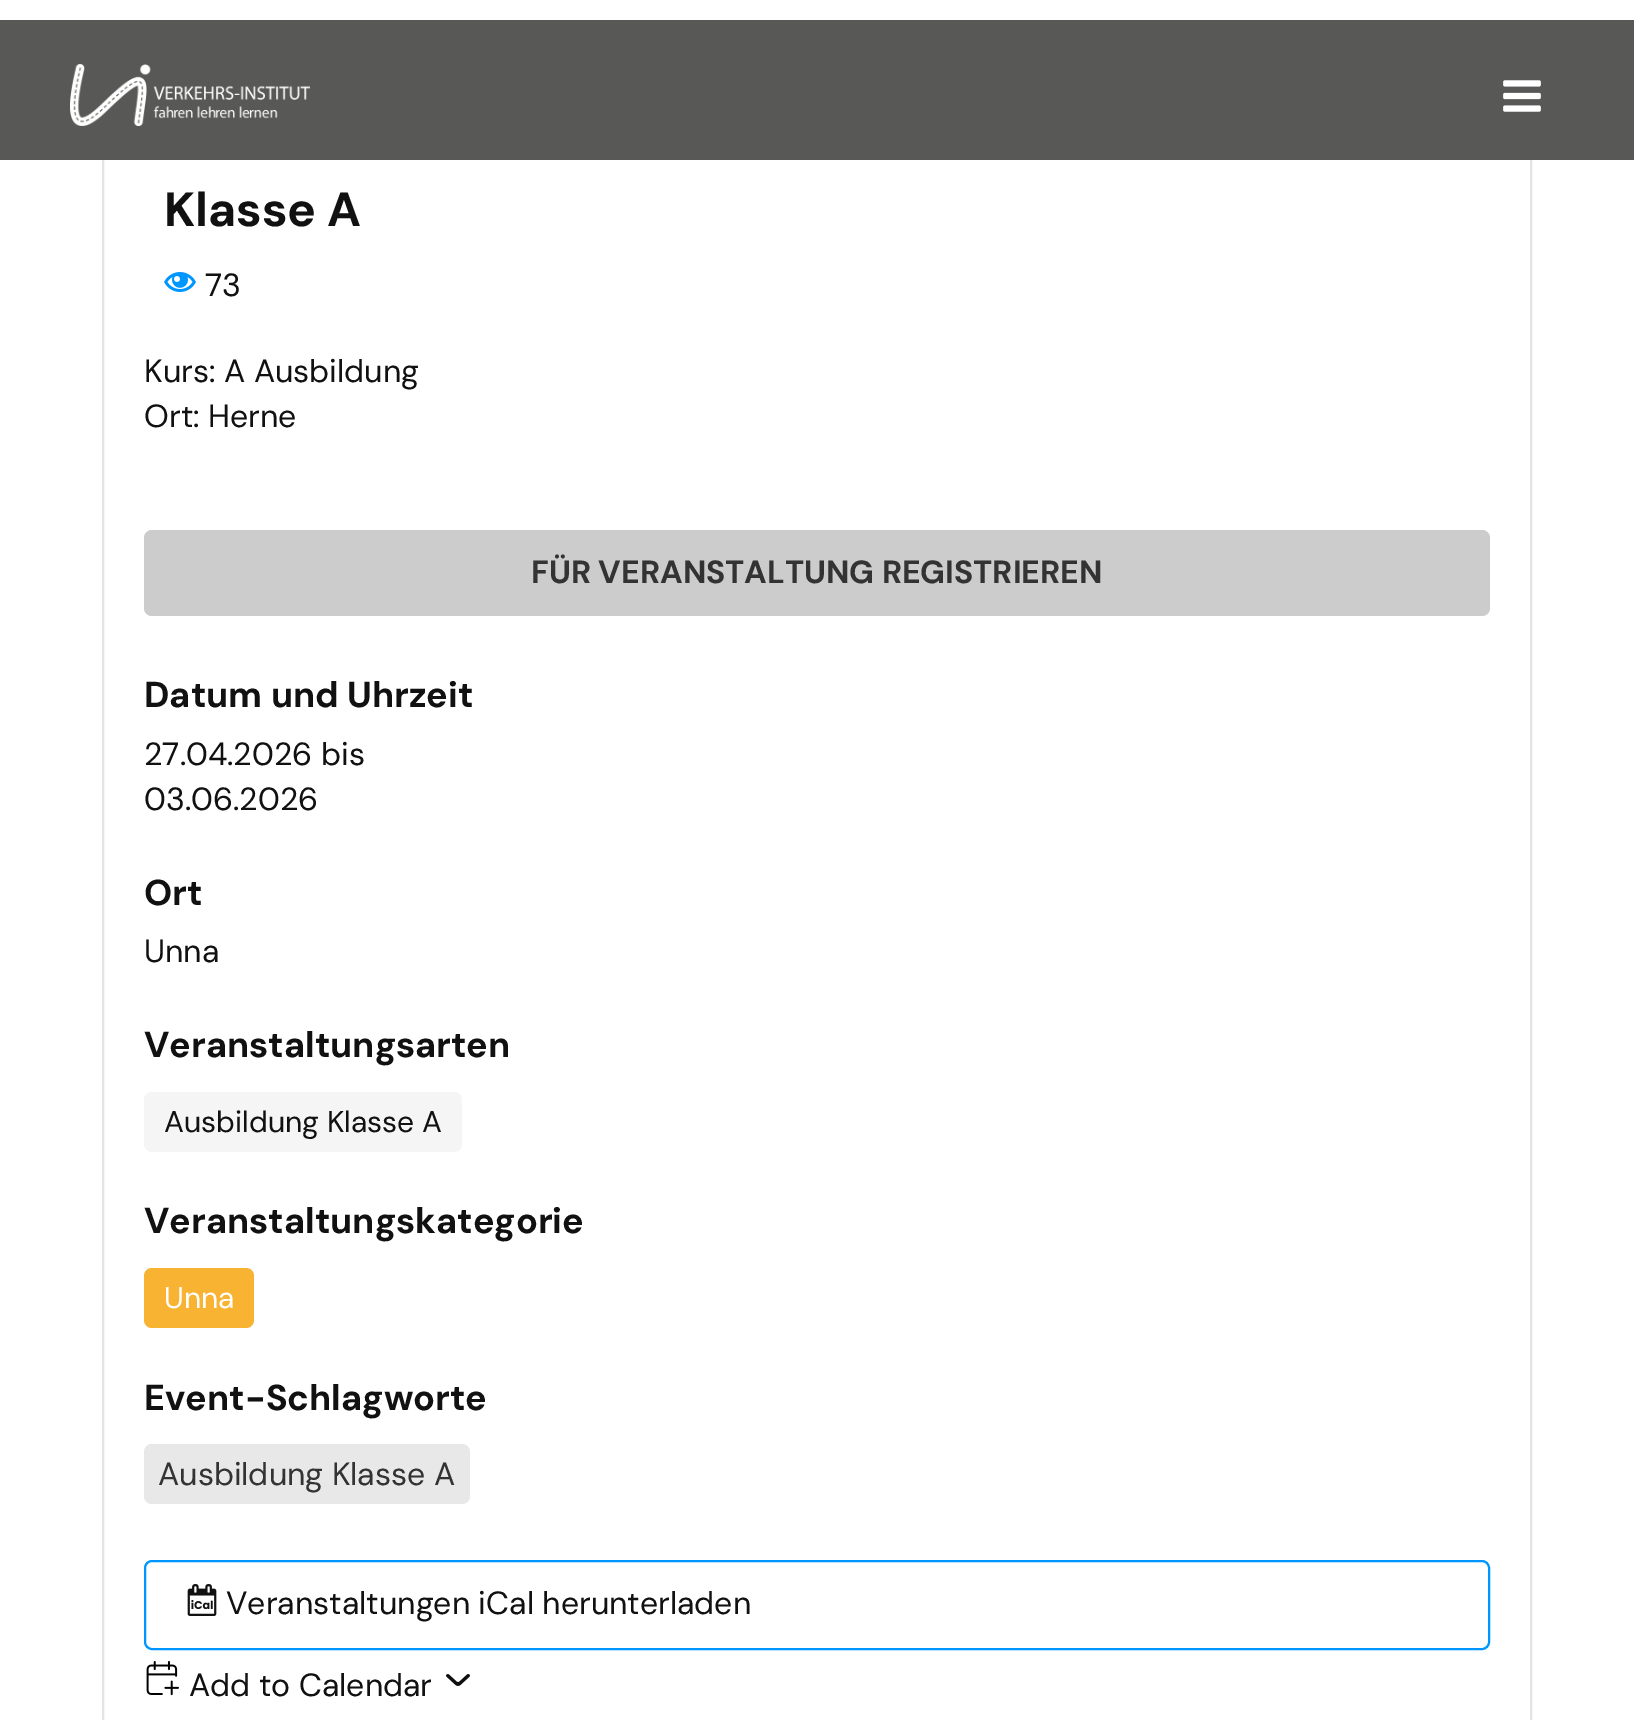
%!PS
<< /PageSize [1634 1720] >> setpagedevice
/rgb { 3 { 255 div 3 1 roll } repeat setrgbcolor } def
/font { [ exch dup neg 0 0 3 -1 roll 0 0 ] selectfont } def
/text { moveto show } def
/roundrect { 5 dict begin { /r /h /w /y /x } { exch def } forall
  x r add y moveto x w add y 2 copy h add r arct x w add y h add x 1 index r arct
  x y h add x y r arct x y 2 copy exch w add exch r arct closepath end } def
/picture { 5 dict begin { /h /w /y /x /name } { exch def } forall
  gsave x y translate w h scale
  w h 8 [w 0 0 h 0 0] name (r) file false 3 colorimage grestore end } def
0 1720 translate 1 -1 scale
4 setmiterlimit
255 255 255 rgb
0 0 1634 1720 rectfill
228 228 228 rgb
2 setlinewidth
103 103 1428 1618 rectstroke
88 88 87 rgb
0 20 1634 140 rectfill
(img_01.rgb) 70 64 240 62 picture
(img_02.rgb) 1503 80 38 32 picture
(img_03.rgb) 164 272 32 20 picture
204 204 204 rgb
144 530 1346 86 8 roundrect fill
245 245 245 rgb
144 1092 318 60 8 roundrect fill
249 179 51 rgb
144 1268 110 60 8 roundrect fill
232 232 232 rgb
144 1444 326 60 8 roundrect fill
0 150 255 rgb
145 1561 1344 88 7 roundrect stroke
(img_04.rgb) 187 1584 30 32 picture
(img_05.rgb) 146 1661 33 35 picture
(img_06.rgb) 446 1674 24 12 picture
/DMSans-Bold 48 font
17 17 17 rgb
(Klasse A) 164 226 text
/DMSans-Regular 32 font
(73) 205 296 text
(Kurs: A Ausbildung) 144 382 text
(Ort: Herne) 144 427 text
/DMSans-Bold 32 font
51 51 51 rgb
(FÜR VERANSTALTUNG REGISTRIEREN) 531 583 text
/DMSans-Bold 36 font
17 17 17 rgb
(Datum und Uhrzeit) 144 707 text
/DMSans-Regular 32 font
(27.04.2026 bis) 144 765 text
(03.06.2026) 144 810 text
/DMSans-Bold 36 font
(Ort) 144 905 text
/DMSans-Regular 32 font
(Unna) 144 962 text
/DMSans-Bold 36 font
(Veranstaltungsarten) 144 1057 text
/DMSans-Regular 30 font
(Ausbildung Klasse A) 164 1132 text
/DMSans-Bold 36 font
(Veranstaltungskategorie) 144 1233 text
/DMSans-Regular 30 font
255 255 255 rgb
(Unna) 164 1308 text
/DMSans-Bold 36 font
17 17 17 rgb
(Event-Schlagworte) 144 1410 text
/DMSans-Regular 32 font
51 51 51 rgb
(Ausbildung Klasse A) 158 1485 text
17 17 17 rgb
(Veranstaltungen iCal herunterladen) 226 1614 text
(Add to Calendar) 189 1696 text
showpage
